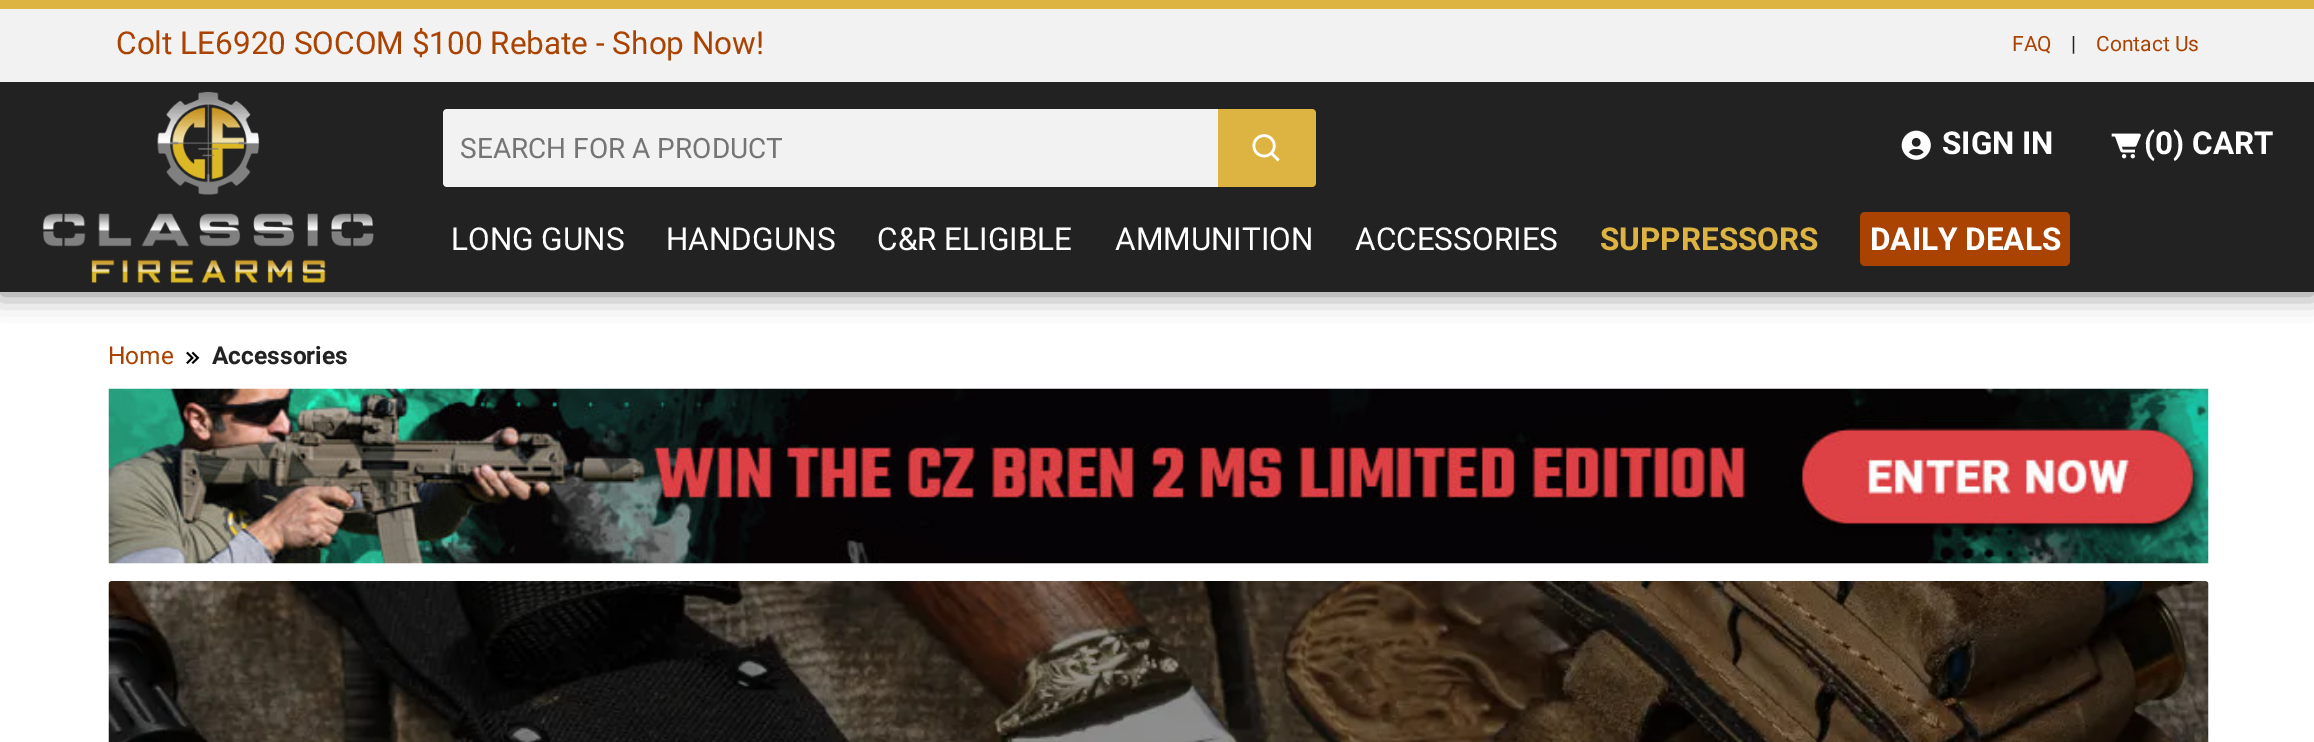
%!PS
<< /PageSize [2314 742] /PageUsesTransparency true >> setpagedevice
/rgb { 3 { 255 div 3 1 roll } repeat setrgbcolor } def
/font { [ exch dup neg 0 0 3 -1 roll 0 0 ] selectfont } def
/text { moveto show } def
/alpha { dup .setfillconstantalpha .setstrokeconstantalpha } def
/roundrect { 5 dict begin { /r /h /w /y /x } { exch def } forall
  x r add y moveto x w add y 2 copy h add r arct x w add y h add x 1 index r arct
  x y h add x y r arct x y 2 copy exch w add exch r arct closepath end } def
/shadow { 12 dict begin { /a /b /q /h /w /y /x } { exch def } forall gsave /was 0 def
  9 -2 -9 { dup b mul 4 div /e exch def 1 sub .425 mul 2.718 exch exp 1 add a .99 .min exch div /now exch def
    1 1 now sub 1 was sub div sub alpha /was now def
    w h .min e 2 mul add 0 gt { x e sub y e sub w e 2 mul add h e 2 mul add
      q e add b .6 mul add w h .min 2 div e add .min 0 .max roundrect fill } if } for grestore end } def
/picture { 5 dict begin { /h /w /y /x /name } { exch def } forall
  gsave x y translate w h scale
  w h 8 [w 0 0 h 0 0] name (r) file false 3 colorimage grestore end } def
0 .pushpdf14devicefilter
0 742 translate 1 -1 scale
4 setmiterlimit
255 255 255 rgb
0 0 2314 742 rectfill
0 0 0 rgb
0 2 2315 292 0 13 0.5 shadow
34 34 34 rgb
0 82 2314 210 rectfill
221 180 65 rgb
0 0 2314 9 rectfill
242 242 242 rgb
0 9 2314 73 rectfill
(img_01.rgb) 42 91 332 192 picture
447 109 moveto 775 0 rlineto 0 78 rlineto -775 0 rlineto -2 0 -4 -2 -4 -4 rcurveto 0 -70 rlineto 0 -2 2 -4 4 -4 rcurveto closepath fill
221 180 65 rgb
1218 109 moveto 94 0 rlineto 2 0 4 2 4 4 rcurveto 0 70 rlineto 0 2 -2 4 -4 4 rcurveto -94 0 rlineto closepath fill
(img_02.rgb) 1252 134 28 28 picture
(img_03.rgb) 1901 130 30 30 picture
(img_04.rgb) 2111 133 30 26 picture
170 67 1 rgb
1860 212 210 54 5 roundrect fill
(img_05.rgb) 186 351 14 13 picture
(img_06.rgb) 108 388 2101 176 picture
(img_07.rgb) 108 581 2101 161 picture
/Roboto-Regular 31.5 font
(Colt LE6920 SOCOM $100 Rebate - Shop Now!) 116 54 text
/Roboto-Regular 21 font
(FAQ) 2012 51 text
34 34 34 rgb
(|) 2071 51 text
170 67 1 rgb
(Contact Us) 2096 51 text
/Roboto-Regular 28 font
117 117 117 rgb
(SEARCH FOR A PRODUCT) 460 158 text
/Roboto-Bold 31.5 font
255 255 255 rgb
(SIGN IN) 1942 154 text
(\(0\) CART) 2144 154 text
/Roboto-Regular 31.5 font
(LONG GUNS) 451 250 text
(HANDGUNS) 666 250 text
(C&R ELIGIBLE) 877 250 text
(AMMUNITION) 1115 250 text
(ACCESSORIES) 1355 250 text
/Roboto-Bold 31.5 font
221 180 65 rgb
(SUPPRESSORS) 1600 250 text
255 255 255 rgb
(DAILY DEALS) 1870 250 text
/Roboto-Regular 24.5 font
170 67 1 rgb
(Home) 108 364 text
/Roboto-Bold 24.5 font
34 34 34 rgb
(Accessories) 212 364 text
.poppdf14devicefilter showpage
